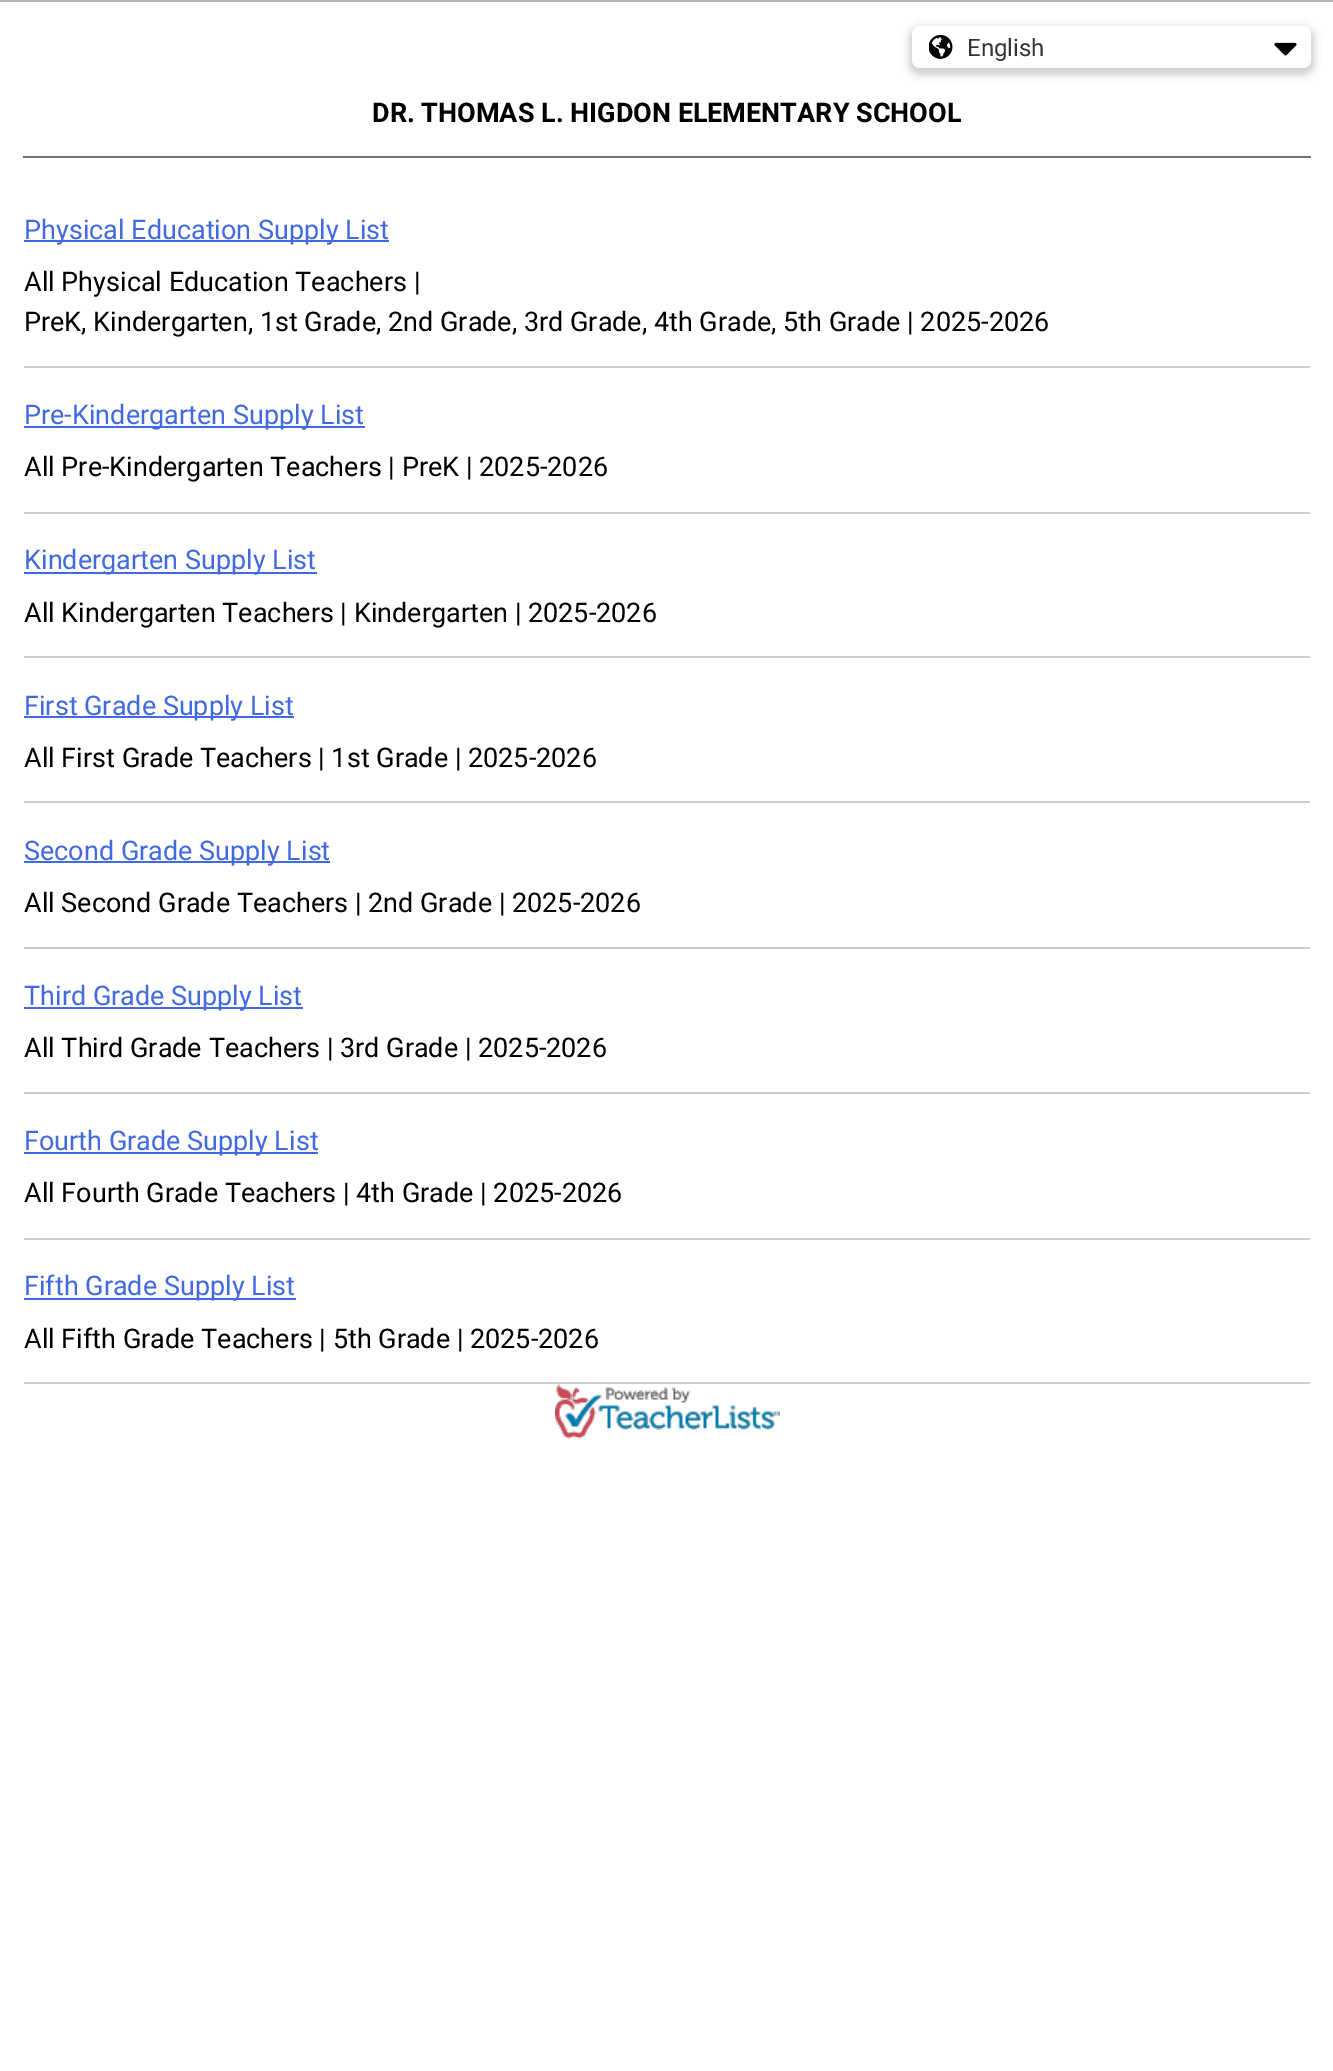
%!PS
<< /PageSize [1333 2071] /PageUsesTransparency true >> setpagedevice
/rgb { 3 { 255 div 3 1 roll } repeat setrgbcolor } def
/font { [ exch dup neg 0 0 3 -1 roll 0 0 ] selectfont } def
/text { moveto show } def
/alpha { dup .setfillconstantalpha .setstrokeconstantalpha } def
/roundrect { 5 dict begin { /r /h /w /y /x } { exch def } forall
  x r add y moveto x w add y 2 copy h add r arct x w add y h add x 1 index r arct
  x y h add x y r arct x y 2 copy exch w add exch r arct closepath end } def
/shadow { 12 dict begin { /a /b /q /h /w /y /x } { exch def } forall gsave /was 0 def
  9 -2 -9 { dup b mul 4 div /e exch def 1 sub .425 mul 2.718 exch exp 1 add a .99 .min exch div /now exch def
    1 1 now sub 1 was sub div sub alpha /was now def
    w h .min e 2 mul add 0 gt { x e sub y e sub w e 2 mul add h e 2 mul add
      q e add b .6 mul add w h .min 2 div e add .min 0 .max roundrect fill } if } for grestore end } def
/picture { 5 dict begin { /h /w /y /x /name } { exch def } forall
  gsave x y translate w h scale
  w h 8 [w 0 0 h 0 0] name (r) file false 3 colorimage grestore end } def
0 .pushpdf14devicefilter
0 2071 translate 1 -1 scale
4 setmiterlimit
255 255 255 rgb
0 0 1333 2071 rectfill
181 181 181 rgb
0 0 1333 2 rectfill
204 204 204 rgb
909 27 405 48 11 4 1 shadow
255 255 255 rgb
912 26 399 42 8 roundrect fill
(img_01.rgb) 929 35 24 24 picture
(img_02.rgb) 1274 42 23 14 picture
112 112 112 rgb
23 156 1288 2 rectfill
204 204 204 rgb
24 366 1286 2 rectfill
65 105 225 rgb
24 240 365 2 rectfill
204 204 204 rgb
24 512 1286 2 rectfill
65 105 225 rgb
24 426 341 2 rectfill
204 204 204 rgb
24 656 1286 2 rectfill
65 105 225 rgb
24 572 293 2 rectfill
204 204 204 rgb
24 801 1286 2 rectfill
65 105 225 rgb
24 716 270 2 rectfill
204 204 204 rgb
24 947 1286 2 rectfill
65 105 225 rgb
24 861 306 2 rectfill
204 204 204 rgb
24 1092 1286 2 rectfill
65 105 225 rgb
24 1007 279 2 rectfill
204 204 204 rgb
24 1238 1286 2 rectfill
65 105 225 rgb
24 1152 294 2 rectfill
204 204 204 rgb
24 1382 1286 2 rectfill
65 105 225 rgb
24 1298 272 2 rectfill
(img_03.rgb) 555 1384 225 55 picture
/Roboto-Regular 24 font
51 51 51 rgb
(English) 967 56 text
/Roboto-Bold 27 font
0 0 0 rgb
(DR. THOMAS L. HIGDON ELEMENTARY SCHOOL) 372 122 text
/Roboto-Regular 27 font
65 105 225 rgb
(Physical Education Supply List) 24 239 text
0 0 0 rgb
(All Physical Education Teachers |) 24 291 text
(PreK, Kindergarten, 1st Grade, 2nd Grade, 3rd Grade, 4th Grade, 5th Grade | 2025-2026) 24 331 text
65 105 225 rgb
(Pre-Kindergarten Supply List) 24 424 text
0 0 0 rgb
(All Pre-Kindergarten Teachers | PreK | 2025-2026) 24 476 text
65 105 225 rgb
(Kindergarten Supply List) 24 569 text
0 0 0 rgb
(All Kindergarten Teachers | Kindergarten | 2025-2026) 24 622 text
65 105 225 rgb
(First Grade Supply List) 24 715 text
0 0 0 rgb
(All First Grade Teachers | 1st Grade | 2025-2026) 24 767 text
65 105 225 rgb
(Second Grade Supply List) 24 860 text
0 0 0 rgb
(All Second Grade Teachers | 2nd Grade | 2025-2026) 24 912 text
65 105 225 rgb
(Third Grade Supply List) 24 1005 text
0 0 0 rgb
(All Third Grade Teachers | 3rd Grade | 2025-2026) 24 1057 text
65 105 225 rgb
(Fourth Grade Supply List) 24 1150 text
0 0 0 rgb
(All Fourth Grade Teachers | 4th Grade | 2025-2026) 24 1202 text
65 105 225 rgb
(Fifth Grade Supply List) 24 1295 text
0 0 0 rgb
(All Fifth Grade Teachers | 5th Grade | 2025-2026) 24 1348 text
.poppdf14devicefilter showpage
